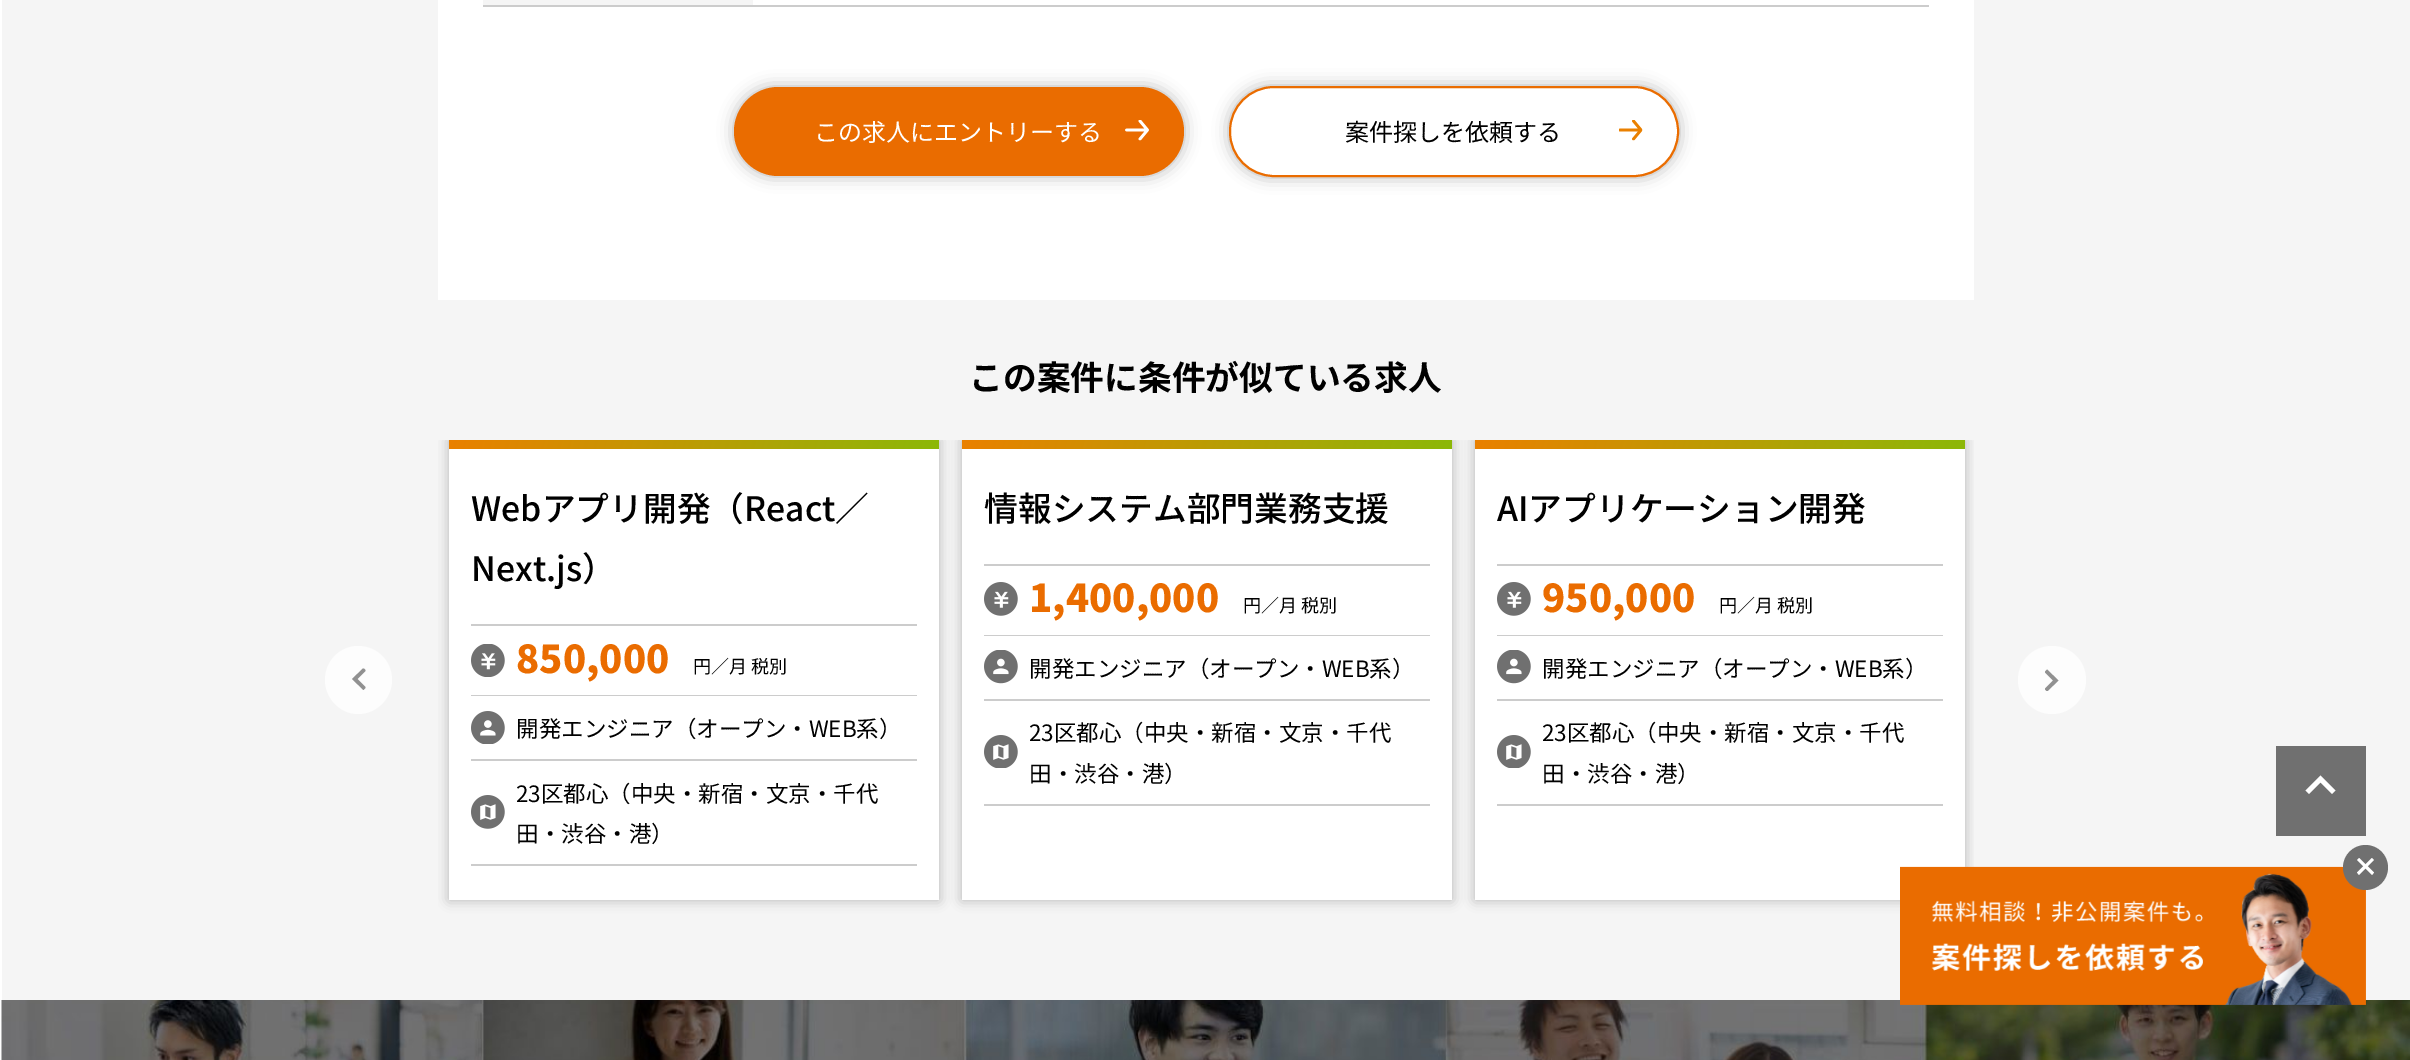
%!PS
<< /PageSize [2410 1060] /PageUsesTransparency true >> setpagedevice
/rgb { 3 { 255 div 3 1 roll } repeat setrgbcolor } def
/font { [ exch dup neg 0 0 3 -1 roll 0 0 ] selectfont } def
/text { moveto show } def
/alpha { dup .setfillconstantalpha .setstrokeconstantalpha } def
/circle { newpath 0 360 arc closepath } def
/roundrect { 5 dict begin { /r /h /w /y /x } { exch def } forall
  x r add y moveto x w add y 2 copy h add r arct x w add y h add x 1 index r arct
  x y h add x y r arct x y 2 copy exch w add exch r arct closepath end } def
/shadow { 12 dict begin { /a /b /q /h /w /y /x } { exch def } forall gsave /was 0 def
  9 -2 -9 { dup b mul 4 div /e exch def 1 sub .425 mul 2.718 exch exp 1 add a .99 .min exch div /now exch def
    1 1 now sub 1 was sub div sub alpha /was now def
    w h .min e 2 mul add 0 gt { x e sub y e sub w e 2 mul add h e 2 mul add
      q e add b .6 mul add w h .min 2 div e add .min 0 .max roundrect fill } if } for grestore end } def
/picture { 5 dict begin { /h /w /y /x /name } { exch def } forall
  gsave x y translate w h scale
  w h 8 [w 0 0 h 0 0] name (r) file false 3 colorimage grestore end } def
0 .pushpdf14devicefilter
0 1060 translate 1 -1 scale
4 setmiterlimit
255 255 255 rgb
0 0 2410 1060 rectfill
245 245 245 rgb
2 0 2408 1000 rectfill
255 255 255 rgb
438 0 1536 300 rectfill
245 245 245 rgb
483 0 270 5 rectfill
204 204 204 rgb
483 5 1446 2 rectfill
0 0 0 rgb
734 87 450 89 44.5 8 0.3 shadow
234 108 0 rgb
734 87 450 89 44.5 roundrect fill
(img_01.rgb) 1125 120 24 21 picture
0 0 0 rgb
1229 86 450 91 45 8 0.3 shadow
255 255 255 rgb
1230 87 448 89 44 roundrect gsave fill grestore
234 108 0 rgb
2 setlinewidth
stroke
(img_02.rgb) 1619 120 24 21 picture
253 253 253 rgb
325 680 moveto 0 -19 15 -34 33 -34 rcurveto 19 0 34 15 34 34 rcurveto 0 18 -15 34 -34 34 rcurveto -18 0 -33 -16 -33 -34 rcurveto closepath fill
145 145 145 rgb
363.5 690 moveto 2 -2 rlineto 0 -1 rlineto -8 -8 rlineto 8 -8 rlineto 0 -1 rlineto -1.5 -1.5 rlineto -1 0 rlineto -11 10.5 rlineto closepath fill
gsave
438 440 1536 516 rectclip
0 0 0 rgb
449 440 490 460 0 6 0.26 shadow
grestore
255 255 255 rgb
449 449 490 451 rectfill
gsave 449 440 moveto 490 0 rlineto 0 9 rlineto -490 0 rlineto closepath clip newpath
<< /ShadingType 2 /ColorSpace /DeviceRGB /Coords [466 379 922 509] /Extend [true true] /Function << /FunctionType 2 /Domain [0 1] /C0 [0.918 0.502 0] /C1 [0.549 0.722 0.031] /N 1 >> >> shfill grestore
204 204 204 rgb
471 624 446 2 rectfill
(img_03.rgb) 471 644 34 33 picture
471 695 446 1 rectfill
(img_04.rgb) 471 711 34 33 picture
471 759 446 2 rectfill
(img_05.rgb) 471 795 34 34 picture
471 864 446 2 rectfill
gsave
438 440 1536 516 rectclip
0 0 0 rgb
962 440 490 460 0 6 0.26 shadow
grestore
255 255 255 rgb
962 449 490 451 rectfill
gsave 962 440 moveto 490 0 rlineto 0 9 rlineto -490 0 rlineto closepath clip newpath
<< /ShadingType 2 /ColorSpace /DeviceRGB /Coords [979 379 1435 509] /Extend [true true] /Function << /FunctionType 2 /Domain [0 1] /C0 [0.918 0.502 0] /C1 [0.549 0.722 0.031] /N 1 >> >> shfill grestore
204 204 204 rgb
984 564 446 2 rectfill
(img_06.rgb) 984 582 34 34 picture
984 635 446 1 rectfill
(img_07.rgb) 984 650 34 34 picture
984 699 446 2 rectfill
(img_08.rgb) 984 735 34 33 picture
984 804 446 2 rectfill
gsave
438 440 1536 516 rectclip
0 0 0 rgb
1475 440 490 460 0 6 0.26 shadow
grestore
255 255 255 rgb
1475 449 490 451 rectfill
gsave 1475 440 moveto 490 0 rlineto 0 9 rlineto -490 0 rlineto closepath clip newpath
<< /ShadingType 2 /ColorSpace /DeviceRGB /Coords [1492 379 1948 509] /Extend [true true] /Function << /FunctionType 2 /Domain [0 1] /C0 [0.918 0.502 0] /C1 [0.549 0.722 0.031] /N 1 >> >> shfill grestore
204 204 204 rgb
1497 564 446 2 rectfill
(img_06.rgb) 1497 582 34 34 picture
1497 635 446 1 rectfill
(img_07.rgb) 1497 650 34 34 picture
1497 699 446 2 rectfill
(img_08.rgb) 1497 735 34 33 picture
1497 804 446 2 rectfill
253 253 253 rgb
2086 680 moveto 0 18 -15 34 -34 34 rcurveto -19 0 -34 -16 -34 -34 rcurveto 0 -19 15 -34 34 -34 rcurveto 19 0 34 15 34 34 rcurveto closepath fill
145 145 145 rgb
2047 669.5 moveto 11.5 11 rlineto -11 10.5 rlineto -1 0 rlineto -1.5 -1.5 rlineto 0 -1 rlineto 8 -8 rlineto -8 -8 rlineto 0 -1 rlineto closepath fill
(img_10.rgb) 1 1000 2409 60 picture
(img_09.rgb) 1900 866 466 139 picture
112 112 112 rgb
2365.5 867.5 22.5 circle fill
255 255 255 rgb
2372 858 moveto 2 2 rlineto -15 15 rlineto -2 -2.5 rlineto closepath fill
2357 860 moveto 2 -2 rlineto 15 14.5 rlineto -2 2.5 rlineto closepath fill
112 112 112 rgb
2276 746 90 90 rectfill
255 255 255 rgb
2305.5 790.5 moveto 3.5 3.5 rlineto 11.5 -11.5 rlineto 11.5 11.5 rlineto 3.5 -3.5 rlineto -15 -15 rlineto closepath fill
/NotoSansCJKJP-Regular 24 font
(この求人にエントリーする) 814 141 text
0 0 0 rgb
(案件探しを依頼する) 1345 141 text
/NotoSansCJKJP-Bold 33.75 font
(この案件に条件が似ている求人) 969 390 text
/NotoSansCJKJP-Medium 33.75 font
(Webアプリ開発（React／) 471 521 text
(Next.js）) 471 581 text
/NotoSansCJKJP-Black 38.25 font
234 108 0 rgb
(850,000) 516 673 text
/NotoSansCJKJP-Regular 18 font
0 0 0 rgb
(円／月 税別) 693 673 text
/NotoSansCJKJP-Regular 22.5 font
(開発エンジニア（オープン・WEB系）) 516 737 text
(23区都心（中央・新宿・文京・千代) 516 802 text
(田・渋谷・港）) 516 842 text
/NotoSansCJKJP-Medium 33.75 font
(情報システム部門業務支援) 984 521 text
/NotoSansCJKJP-Black 38.25 font
234 108 0 rgb
(1,400,000) 1029 612 text
/NotoSansCJKJP-Regular 18 font
0 0 0 rgb
(円／月 税別) 1243 612 text
/NotoSansCJKJP-Regular 22.5 font
(開発エンジニア（オープン・WEB系）) 1029 677 text
(23区都心（中央・新宿・文京・千代) 1029 741 text
(田・渋谷・港）) 1029 782 text
/NotoSansCJKJP-Medium 33.75 font
(AIアプリケーション開発) 1497 521 text
/NotoSansCJKJP-Black 38.25 font
234 108 0 rgb
(950,000) 1542 612 text
/NotoSansCJKJP-Regular 18 font
0 0 0 rgb
(円／月 税別) 1719 612 text
/NotoSansCJKJP-Regular 22.5 font
(開発エンジニア（オープン・WEB系）) 1542 677 text
(23区都心（中央・新宿・文京・千代) 1542 741 text
(田・渋谷・港）) 1542 782 text
.poppdf14devicefilter showpage
